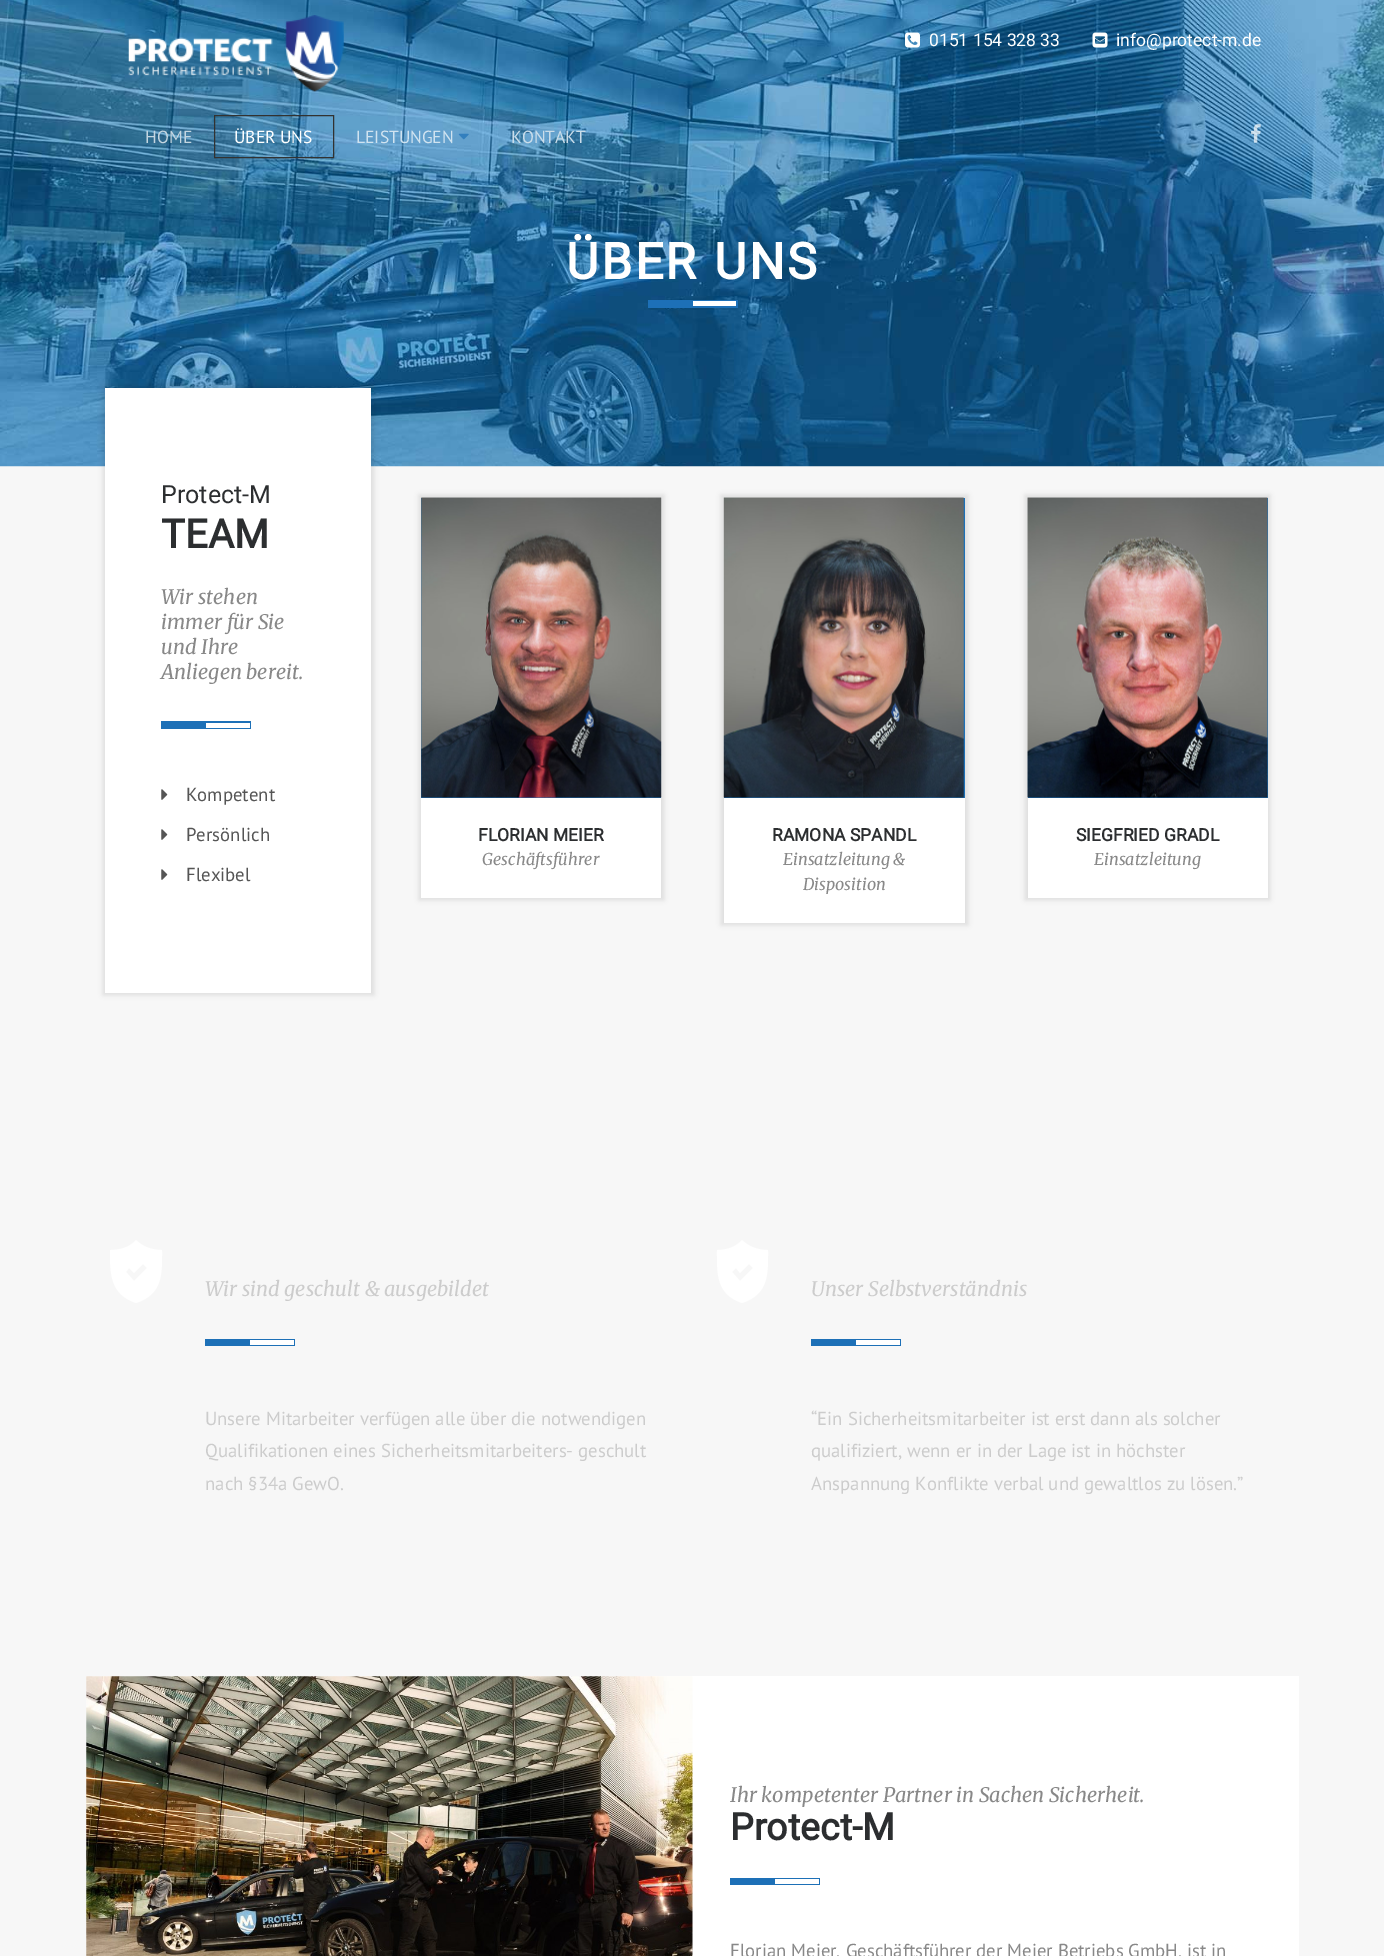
%!PS
<< /PageSize [1384 1956] /PageUsesTransparency true >> setpagedevice
/rgb { 3 { 255 div 3 1 roll } repeat setrgbcolor } def
/font { [ exch dup neg 0 0 3 -1 roll 0 0 ] selectfont } def
/text { moveto show } def
/alpha { dup .setfillconstantalpha .setstrokeconstantalpha } def
/roundrect { 5 dict begin { /r /h /w /y /x } { exch def } forall
  x r add y moveto x w add y 2 copy h add r arct x w add y h add x 1 index r arct
  x y h add x y r arct x y 2 copy exch w add exch r arct closepath end } def
/shadow { 12 dict begin { /a /b /q /h /w /y /x } { exch def } forall gsave /was 0 def
  9 -2 -9 { dup b mul 4 div /e exch def 1 sub .425 mul 2.718 exch exp 1 add a .99 .min exch div /now exch def
    1 1 now sub 1 was sub div sub alpha /was now def
    w h .min e 2 mul add 0 gt { x e sub y e sub w e 2 mul add h e 2 mul add
      q e add b .6 mul add w h .min 2 div e add .min 0 .max roundrect fill } if } for grestore end } def
/picture { 5 dict begin { /h /w /y /x /name } { exch def } forall
  gsave x y translate w h scale
  w h 8 [w 0 0 h 0 0] name (r) file false 3 colorimage grestore end } def
0 .pushpdf14devicefilter
0 1956 translate 1 -1 scale
4 setmiterlimit
247 247 247 rgb
0 0 1384 1956 rectfill
(img_06.rgb) 0 0 1384 467 picture
(img_01.rgb) 128 15 216 77 picture
(img_02.rgb) 905 32 15 16 picture
(img_03.rgb) 1092 32 16 16 picture
50 50 49 rgb
214.5 115.5 119 42 rectstroke
(img_04.rgb) 458 133 11 7 picture
(img_05.rgb) 1251 124 10 19 picture
29 112 183 rgb
648 300 90 8 rectfill
255 255 255 rgb
693 301 43 5 rectfill
0 0 0 rgb
103 385 271 610 0 2.5 0.1 shadow
255 255 255 rgb
105 388 266 605 rectfill
29 112 183 rgb
161 721 90 8 rectfill
255 255 255 rgb
206 723 44 5 rectfill
(img_07.rgb) 161 789 7 11 picture
(img_07.rgb) 161 829 7 11 picture
(img_07.rgb) 161 869 7 11 picture
0 0 0 rgb
419 495 245 405 0 2.5 0.1 shadow
29 112 183 rgb
421 498 240 300 rectfill
(img_08.rgb) 421 497 241 301 picture
255 255 255 rgb
421 798 240 100 rectfill
0 0 0 rgb
721 495 247 430 0 2.5 0.1 shadow
29 112 183 rgb
724 498 241 300 rectfill
(img_09.rgb) 723 497 241 301 picture
255 255 255 rgb
724 798 241 125 rectfill
0 0 0 rgb
1025 495 245 405 0 2.5 0.1 shadow
29 112 183 rgb
1028 498 240 300 rectfill
(img_10.rgb) 1027 497 241 301 picture
255 255 255 rgb
1028 798 240 100 rectfill
162 1250 moveto -10 0 -19 -3 -26 -10 rcurveto -6 7 -15 10 -26 10 rcurveto 0 24 0 44 26 53 rcurveto 27 -9 26 -29 26 -53 rcurveto closepath 134 1281 moveto -8 -9 rlineto 3 -4 rlineto 5 5 rlineto 9 -9 rlineto 4 4 rlineto closepath fill
29 112 183 rgb
205 1339 90 7 rectfill
255 255 255 rgb
250 1340 44 5 rectfill
768 1250 moveto -10 0 -19 -3 -26 -10 rcurveto -6 7 -15 10 -25 10 rcurveto 0 24 -1 44 25 53 rcurveto 27 -9 26 -29 26 -53 rcurveto closepath 740 1281 moveto -8 -9 rlineto 4 -4 rlineto 4 5 rlineto 9 -9 rlineto 4 4 rlineto closepath fill
29 112 183 rgb
811 1339 90 7 rectfill
255 255 255 rgb
856 1340 44 5 rectfill
86 1676 1213 280 rectfill
(img_11.rgb) 86 1676 607 280 picture
29 112 183 rgb
730 1878 90 7 rectfill
255 255 255 rgb
775 1879 44 5 rectfill
/Roboto-Regular 17.5 font
(0151 154 328 33) 929 46 text
(info@protect-m.de) 1116 46 text
/PTSans-Regular 17.5 font
196 214 225 rgb
(HOME) 145 143 text
255 255 255 rgb
(ÜBER UNS) 234 143 text
208 227 240 rgb
(LEISTUNGEN) 356 143 text
202 221 234 rgb
(KONTAKT) 511 143 text
/Roboto-Bold 50 font
255 255 255 rgb
566 279 moveto 2.5 0 (ÜBER UNS) ashow
/Roboto-Regular 25 font
44 46 48 rgb
(Protect-M) 161 503 text
/Roboto-Bold 40 font
(TEAM) 161 548 text
/Merriweather-Italic 20 font
136 136 136 rgb
(Wir stehen) 161 604 text
(immer für Sie) 161 629 text
(und Ihre) 161 654 text
(Anliegen bereit.) 161 679 text
/PTSans-Regular 18.75 font
85 85 85 rgb
(Kompetent) 186 801 text
(Persönlich) 186 841 text
(Flexibel) 186 881 text
/Roboto-Bold 17.5 font
44 46 48 rgb
(FLORIAN MEIER) 478 841 text
/Merriweather-Italic 16.25 font
136 136 136 rgb
(Geschäftsführer) 482 865 text
/Roboto-Bold 17.5 font
44 46 48 rgb
(RAMONA SPANDL) 772 841 text
/Merriweather-Italic 16.25 font
136 136 136 rgb
(Einsatzleitung &) 783 865 text
(Disposition) 803 890 text
/Roboto-Bold 17.5 font
44 46 48 rgb
(SIEGFRIED GRADL) 1076 841 text
/Merriweather-Italic 16.25 font
136 136 136 rgb
(Einsatzleitung) 1094 865 text
/Merriweather-Italic 20 font
204 204 204 rgb
(Wir sind geschult & ausgebildet) 205 1296 text
/PTSans-Regular 18.75 font
(Unsere Mitarbeiter verfügen alle über die notwendigen) 205 1425 text
(Qualifikationen eines Sicherheitsmitarbeiters- geschult) 205 1457 text
(nach §34a GewO.) 205 1490 text
/Merriweather-Italic 20 font
(Unser Selbstverständnis) 811 1296 text
/PTSans-Regular 18.75 font
(“Ein Sicherheitsmitarbeiter ist erst dann als solcher) 811 1425 text
(qualifiziert, wenn er in der Lage ist in höchster) 811 1457 text
(Anspannung Konflikte verbal und gewaltlos zu lösen.”) 811 1490 text
/Merriweather-Italic 20 font
136 136 136 rgb
(Ihr kompetenter Partner in Sachen Sicherheit.) 730 1802 text
/Roboto-Bold 37.5 font
44 46 48 rgb
(Protect-M) 730 1840 text
/PTSans-Regular 18.75 font
136 136 136 rgb
(Florian Meier, Geschäftsführer der Meier Betriebs GmbH, ist in) 730 1957 text
.poppdf14devicefilter showpage
